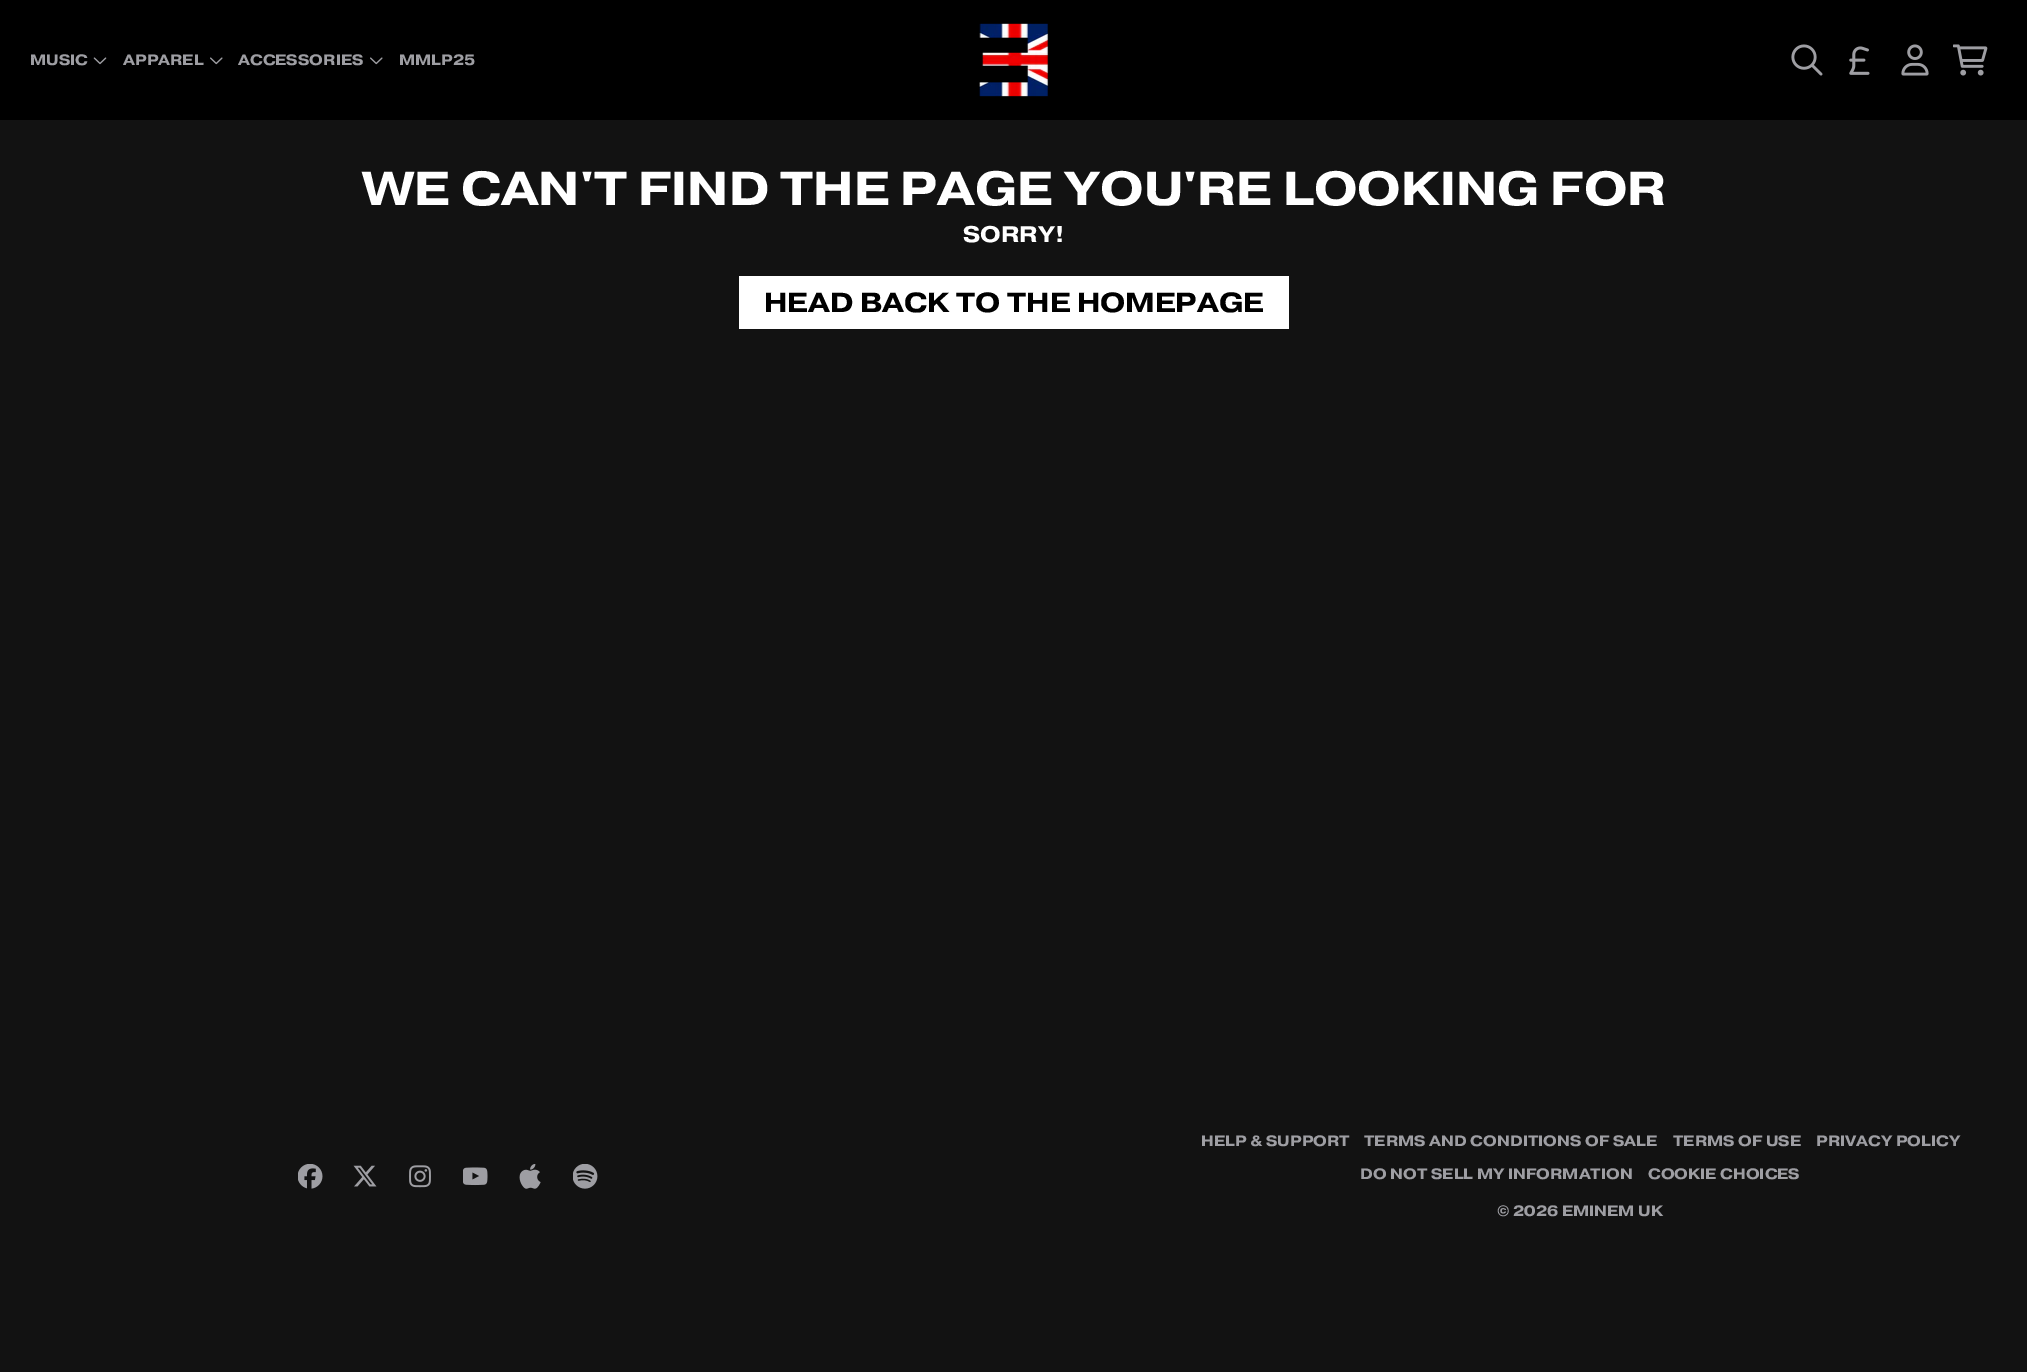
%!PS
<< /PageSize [2027 1372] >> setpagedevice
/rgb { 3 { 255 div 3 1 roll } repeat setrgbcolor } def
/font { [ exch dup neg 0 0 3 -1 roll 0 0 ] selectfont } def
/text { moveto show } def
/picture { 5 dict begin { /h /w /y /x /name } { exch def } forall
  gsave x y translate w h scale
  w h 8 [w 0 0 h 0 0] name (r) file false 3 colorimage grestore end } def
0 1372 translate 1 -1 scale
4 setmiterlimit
18 18 18 rgb
0 0 2027 1372 rectfill
0 0 0 rgb
0 0 2027 120 rectfill
(img_01.rgb) 93 57 14 8 picture
(img_02.rgb) 210 57 13 8 picture
(img_02.rgb) 370 57 13 8 picture
(img_03.rgb) 979 23 70 74 picture
(img_04.rgb) 1791 44 32 32 picture
(img_05.rgb) 1849 46 21 29 picture
(img_06.rgb) 1901 44 28 32 picture
(img_07.rgb) 1953 44 35 32 picture
255 255 255 rgb
739 276 550 53 rectfill
(img_08.rgb) 298 1164 25 25 picture
(img_09.rgb) 353 1165 24 22 picture
(img_10.rgb) 409 1165 22 23 picture
(img_11.rgb) 463 1167 25 19 picture
(img_12.rgb) 519 1164 22 25 picture
(img_13.rgb) 573 1164 25 25 picture
/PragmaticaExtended-Bold 15 font
158 158 163 rgb
(MUSIC) 30 65 text
(APPAREL) 123 65 text
(ACCESSORIES) 238 65 text
(MMLP25) 399 65 text
/PragmaticaExtended-Bold 47.5 font
255 255 255 rgb
(WE CAN'T FIND THE PAGE YOU'RE LOOKING FOR) 362 205 text
/PragmaticaExtended-Bold 22.5 font
(SORRY!) 963 242 text
/PragmaticaExtended-Bold 27.5 font
0 0 0 rgb
(HEAD BACK TO THE HOMEPAGE) 764 312 text
/PragmaticaExtended-Bold 15 font
158 158 163 rgb
(HELP & SUPPORT) 1201 1146 text
(TERMS AND CONDITIONS OF SALE) 1364 1146 text
(TERMS OF USE) 1673 1146 text
(PRIVACY POLICY) 1816 1146 text
(DO NOT SELL MY INFORMATION) 1360 1179 text
(COOKIE CHOICES) 1648 1179 text
(© 2026 EMINEM UK) 1497 1216 text
showpage
